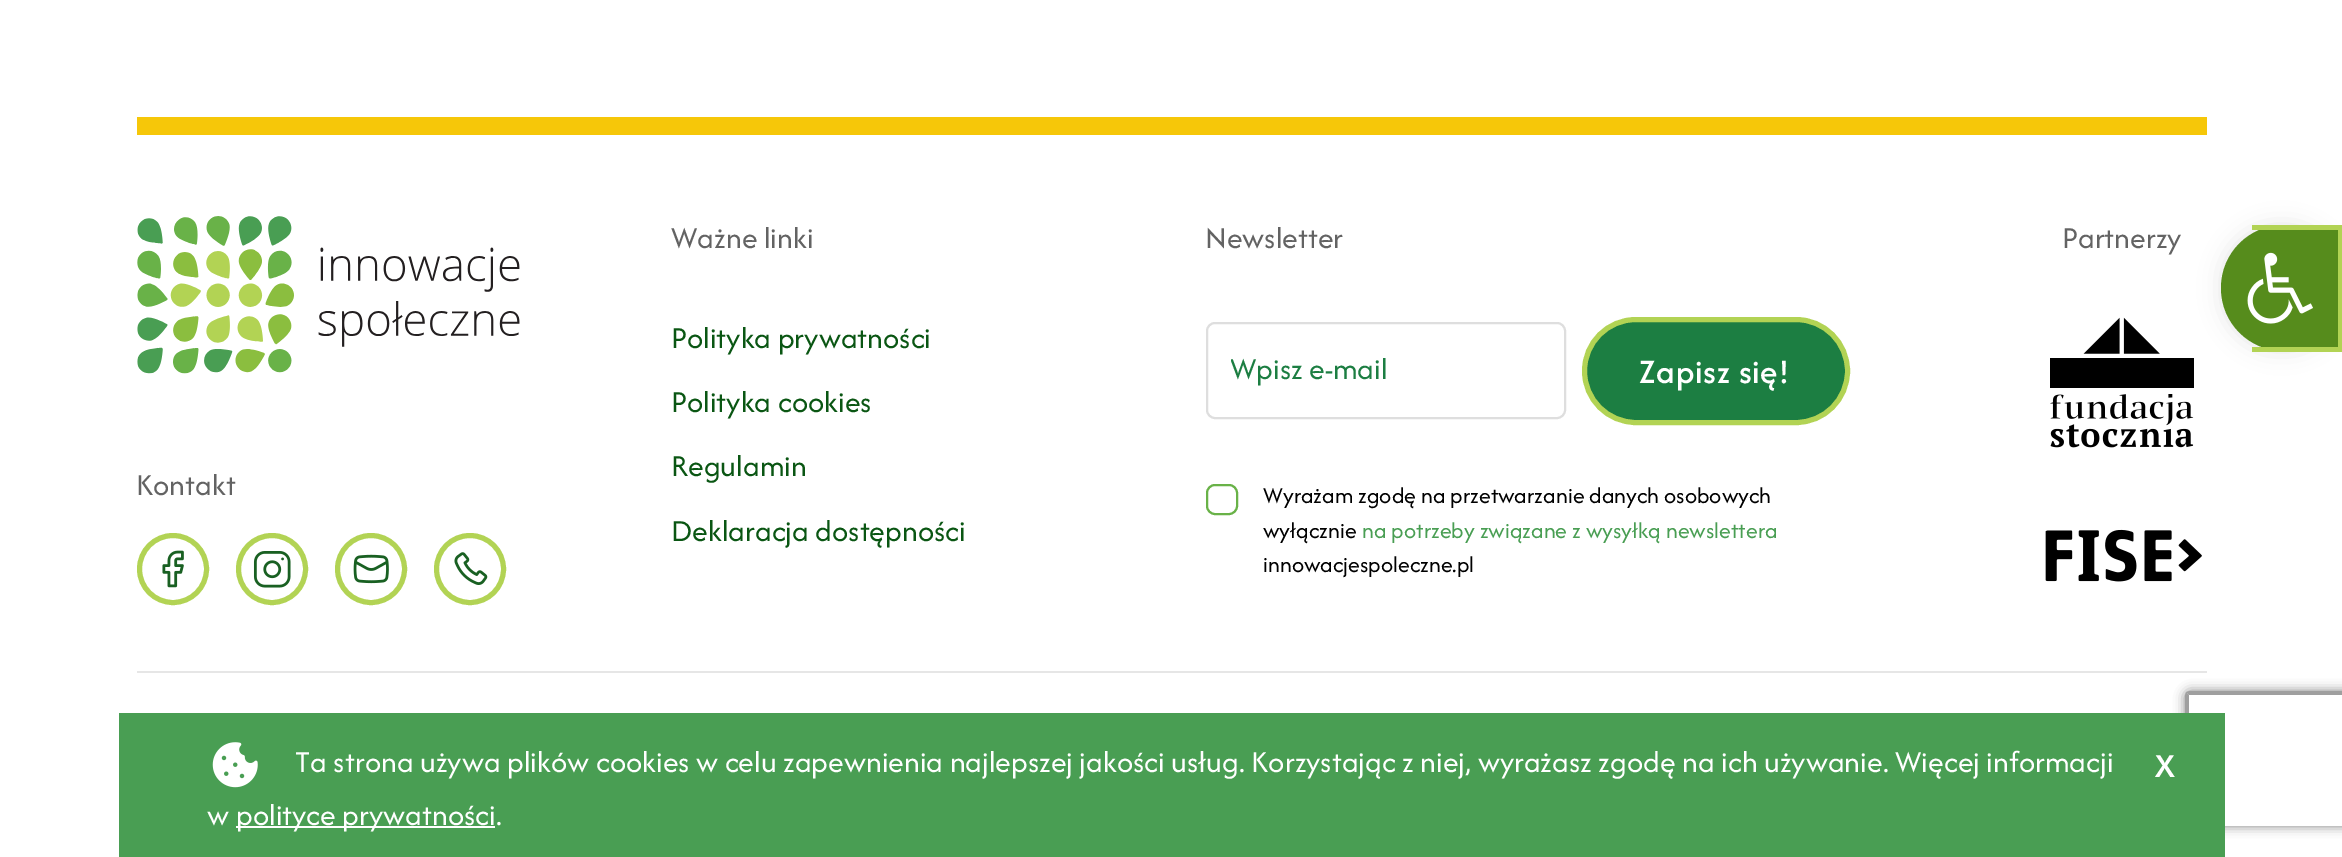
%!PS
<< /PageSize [2342 857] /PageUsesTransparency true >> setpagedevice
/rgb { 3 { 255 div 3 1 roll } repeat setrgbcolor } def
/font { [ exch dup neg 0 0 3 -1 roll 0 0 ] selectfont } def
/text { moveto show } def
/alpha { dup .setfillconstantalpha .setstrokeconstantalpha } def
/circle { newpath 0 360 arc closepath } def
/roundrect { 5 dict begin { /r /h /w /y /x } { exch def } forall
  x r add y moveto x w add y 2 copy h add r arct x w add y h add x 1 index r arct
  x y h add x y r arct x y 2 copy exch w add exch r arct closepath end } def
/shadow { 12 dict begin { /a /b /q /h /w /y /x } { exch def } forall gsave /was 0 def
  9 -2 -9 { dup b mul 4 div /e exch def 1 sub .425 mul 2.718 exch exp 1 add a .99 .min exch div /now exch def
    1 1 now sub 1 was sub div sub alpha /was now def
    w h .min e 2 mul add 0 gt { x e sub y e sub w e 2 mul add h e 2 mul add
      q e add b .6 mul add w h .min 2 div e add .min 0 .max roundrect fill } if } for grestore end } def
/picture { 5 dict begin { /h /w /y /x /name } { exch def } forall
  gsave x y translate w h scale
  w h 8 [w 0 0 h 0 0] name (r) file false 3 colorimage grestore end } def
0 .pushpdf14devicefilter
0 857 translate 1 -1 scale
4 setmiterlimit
255 255 255 rgb
0 0 2342 857 rectfill
246 199 9 rgb
137 117 2070 18 rectfill
222 222 222 rgb
2 setlinewidth
1207 323 358 95 8 roundrect stroke
28 126 66 rgb
1584.5 319.5 263 103 51.5 roundrect gsave fill grestore
178 211 84 rgb
5 setlinewidth
stroke
105 178 72 rgb
2 setlinewidth
1207 485 30 29 8 roundrect stroke
(img_01.rgb) 2050 317 144 131 picture
(img_02.rgb) 2045 529 157 53 picture
(img_03.rgb) 137 216 383 158 picture
178 211 84 rgb
5 setlinewidth
173 569 33.5 circle stroke
(img_04.rgb) 162 550 22 38 picture
272 569 33.5 circle stroke
(img_05.rgb) 253 551 38 37 picture
371 569 33.5 circle stroke
(img_06.rgb) 353 554 36 30 picture
470 569 33.5 circle stroke
(img_07.rgb) 454 552 34 33 picture
230 230 230 rgb
137 671 2070 2 rectfill
0 0 0 rgb
2221 225 121 126 63 11 0.1 shadow
86 140 28 rgb
2284 225 moveto 58 0 rlineto 0 126 rlineto -58 0 rlineto -35 0 -63 -28 -63 -63 rcurveto 0 -35 28 -63 63 -63 rcurveto closepath fill
178 211 84 rgb
2252 225 90 5 rectfill
2338 225 4 126 rectfill
2252 347 90 5 rectfill
(img_08.rgb) 2247 252 66 72 picture
gsave
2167 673 moveto 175 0 rlineto 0 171 rlineto -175 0 rlineto closepath 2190 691 moveto 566 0 rlineto 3 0 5 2 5 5 rcurveto 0 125 rlineto 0 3 -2 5 -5 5 rcurveto -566 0 rlineto -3 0 -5 -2 -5 -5 rcurveto 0 -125 rlineto 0 -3 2 -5 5 -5 rcurveto closepath eoclip newpath
128 128 128 rgb
2185 691 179 135 5 5.5 1 shadow
grestore
159 159 159 rgb
2190 691 moveto 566 0 rlineto 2 0 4 2 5 4 rcurveto -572 0 rlineto -3 -3 rlineto 1 0 3 -1 4 -1 rcurveto closepath fill
2186 692 moveto 3 3 rlineto 0 131 rlineto -2 -1 -4 -3 -4 -5 rcurveto 0 -125 rlineto 0 -1 1 -3 1 -4 rcurveto closepath fill
73 158 83 rgb
119 713 2106 144 rectfill
(img_09.rgb) 212 742 46 46 picture
255 255 255 rgb
236 826 259 2 rectfill
/Afacad-Regular 31.68 font
99 99 99 rgb
(Ważne linki) 671 248 text
10 86 19 rgb
(Polityka prywatności) 671 348 text
(Polityka cookies) 671 412 text
(Regulamin) 671 476 text
(Deklaracja dostępności) 671 541 text
99 99 99 rgb
(Newsletter) 1205 248 text
gsave
1231 347 310 42 rectclip
28 126 66 rgb
(Wpisz e-mail) 1230 379 text
grestore
/Afacad-Medium 35.5 font
255 255 255 rgb
1639 383 moveto 0.75 0 (Zapisz się!) ashow
/Afacad-Regular 23.75 font
0 0 0 rgb
(Wyrażam zgodę na przetwarzanie danych osobowych) 1263 503 text
(wyłącznie) 1263 538 text
73 158 83 rgb
(na potrzeby związane z wysyłką newslettera) 1362 538 text
0 0 0 rgb
(innowacjespoleczne.pl) 1263 572 text
/Afacad-Regular 31.68 font
99 99 99 rgb
(Partnerzy) 2062 248 text
(Kontakt) 136 495 text
255 255 255 rgb
(Ta strona używa plików cookies w celu zapewnienia najlepszej jakości usług. Korzystając z niej, wyrażasz zgodę na ich używanie. Więcej informacji) 295 772 text
(w) 207 825 text
(polityce prywatności.) 236 825 text
/Afacad-Regular 52 font
(x) 2154 777 text
.poppdf14devicefilter showpage
